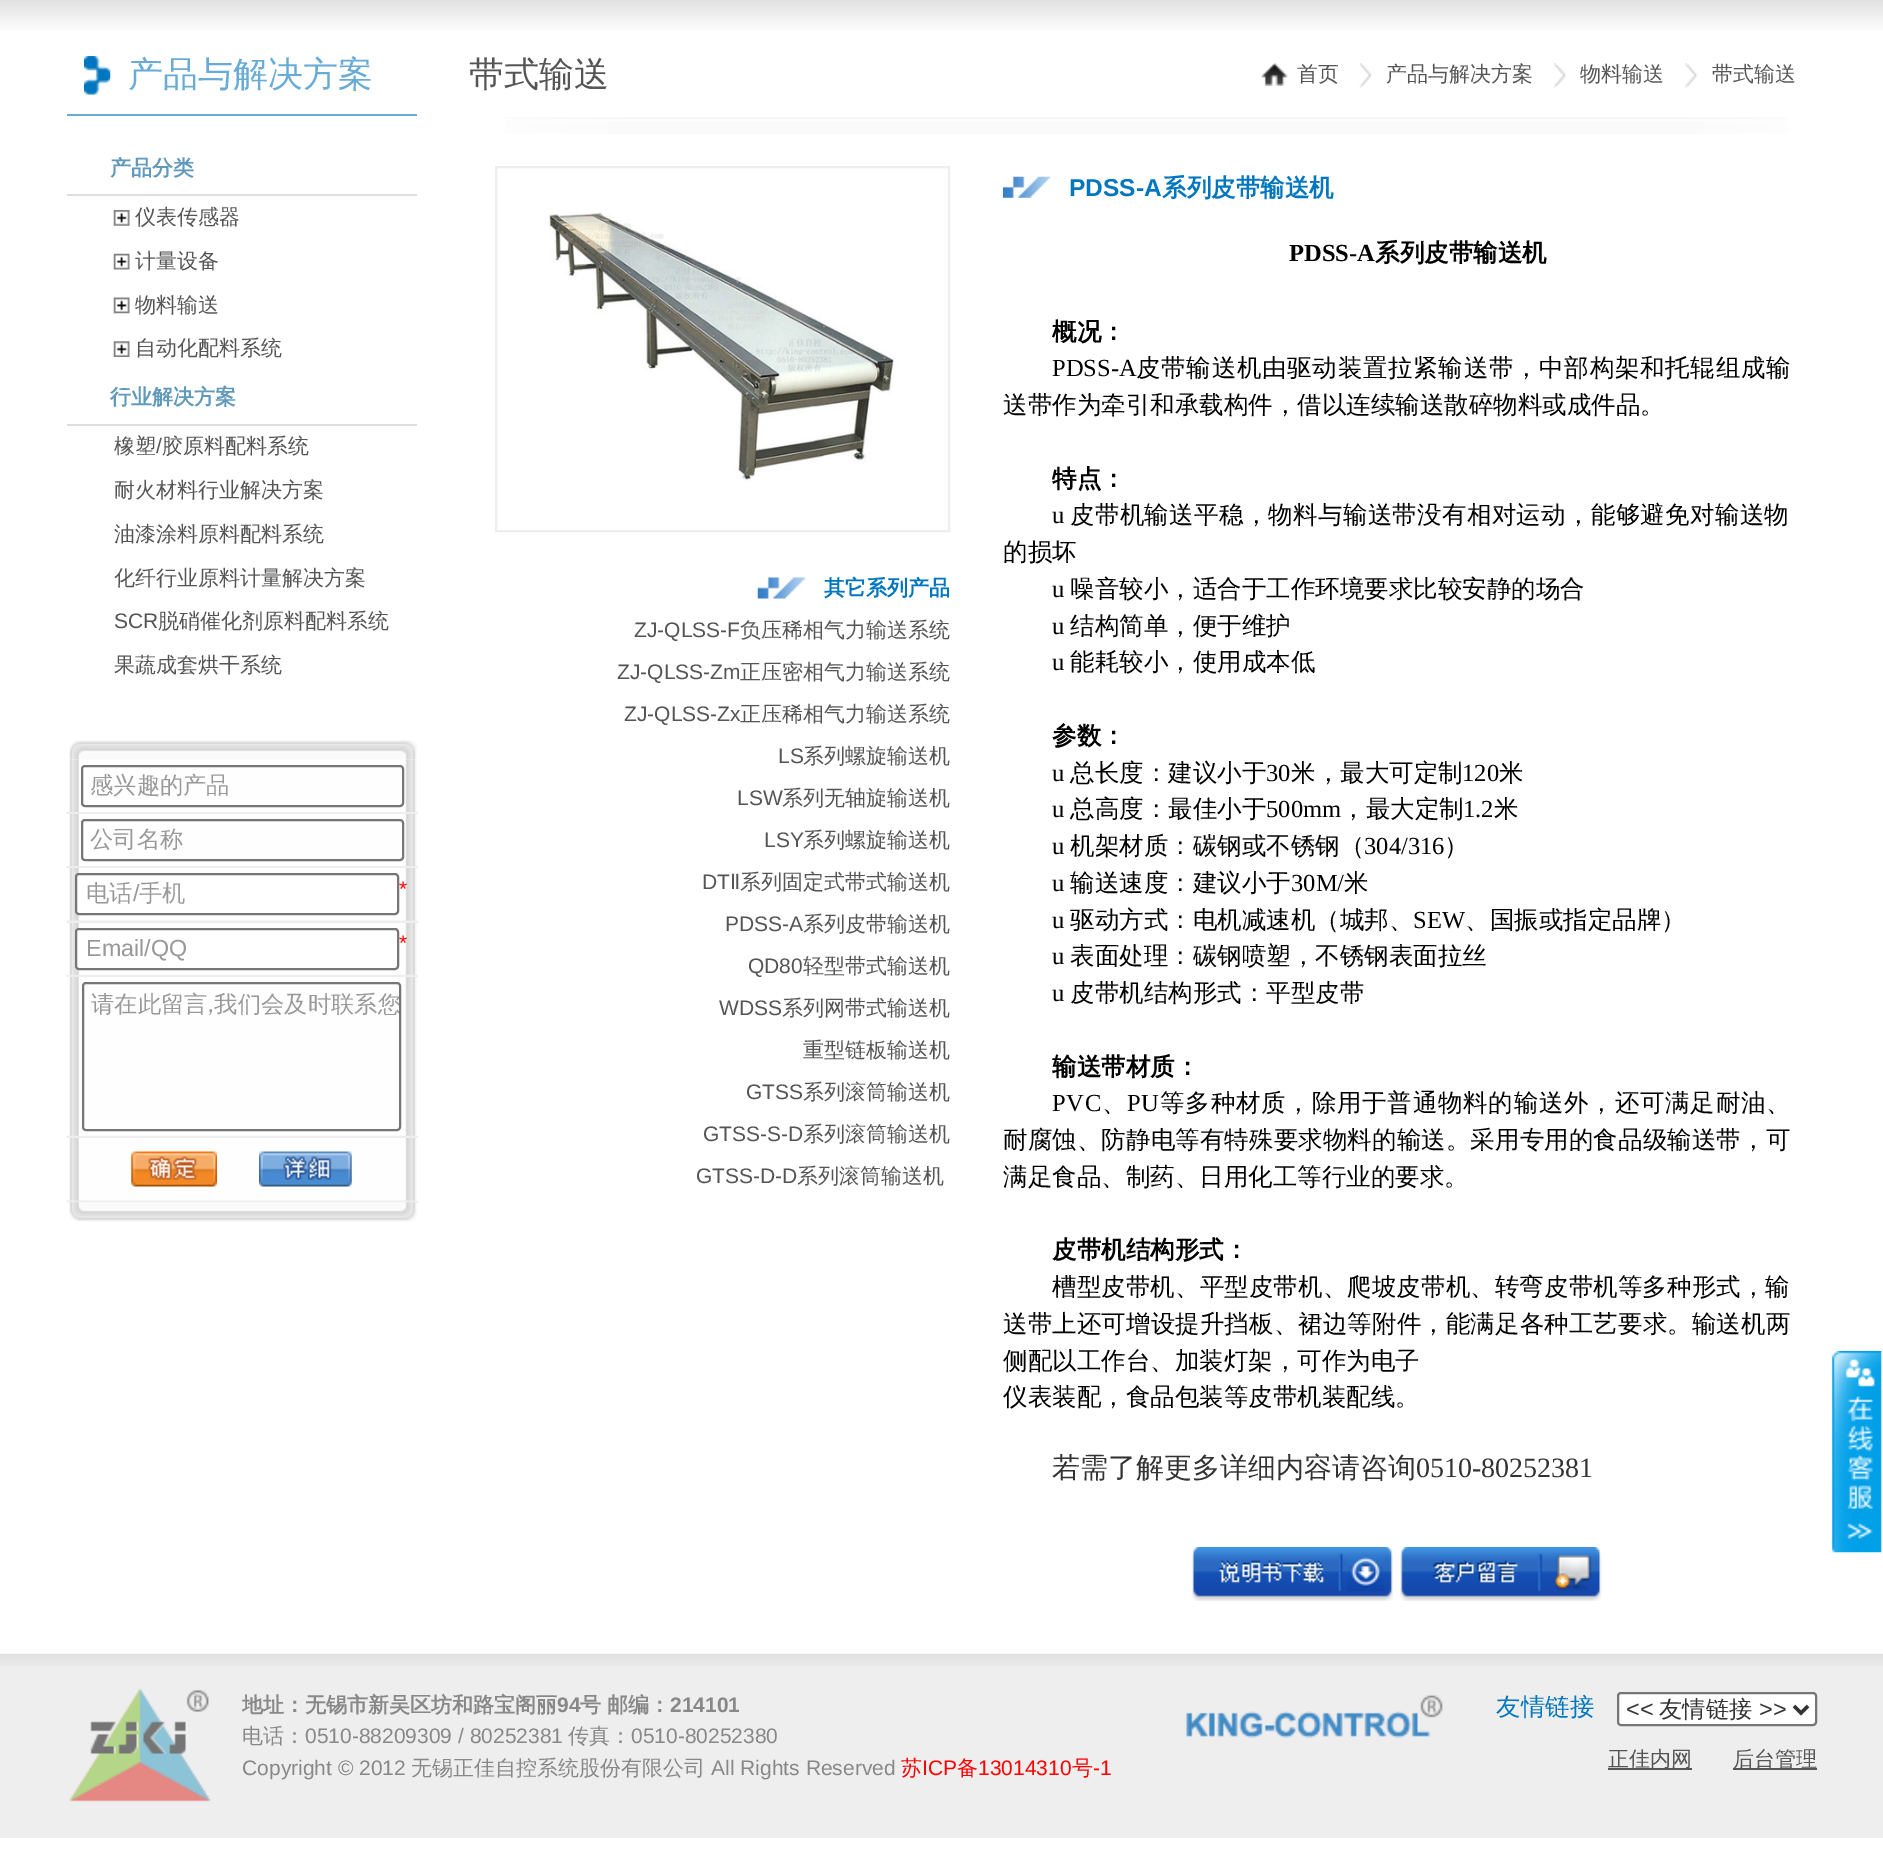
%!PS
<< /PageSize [1883 1867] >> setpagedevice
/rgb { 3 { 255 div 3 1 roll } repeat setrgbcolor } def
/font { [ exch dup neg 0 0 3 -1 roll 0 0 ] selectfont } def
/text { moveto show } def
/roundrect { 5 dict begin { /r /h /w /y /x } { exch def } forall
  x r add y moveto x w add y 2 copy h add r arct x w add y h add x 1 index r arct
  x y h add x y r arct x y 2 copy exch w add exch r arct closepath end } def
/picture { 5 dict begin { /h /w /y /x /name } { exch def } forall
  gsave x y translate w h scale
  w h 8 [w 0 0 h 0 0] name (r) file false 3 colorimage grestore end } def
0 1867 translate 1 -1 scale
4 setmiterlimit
255 255 255 rgb
0 0 1883 1867 rectfill
(img_01.rgb) 0 0 1883 30 picture
(img_02.rgb) 84 56 27 39 picture
103 171 214 rgb
67 114 350 2 rectfill
221 221 221 rgb
67 194 350 2 rectfill
(img_03.rgb) 113 210 17 16 picture
(img_04.rgb) 113 253 17 17 picture
(img_05.rgb) 113 297 17 17 picture
(img_06.rgb) 113 341 17 16 picture
67 424 350 2 rectfill
(img_07.rgb) 69 740 348 20 picture
(img_08.rgb) 66 759 351 444 picture
238 238 238 rgb
67 812 351 2 rectfill
118 118 118 rgb
2 setlinewidth
82 766 321 40 3 roundrect stroke
238 238 238 rgb
67 866 351 2 rectfill
118 118 118 rgb
82 820 321 40 3 roundrect stroke
238 238 238 rgb
67 921 351 2 rectfill
255 255 255 rgb
76 874 322 40 3 roundrect gsave fill grestore
118 118 118 rgb
stroke
238 238 238 rgb
67 975 351 2 rectfill
255 255 255 rgb
76 929 322 40 3 roundrect gsave fill grestore
118 118 118 rgb
stroke
238 238 238 rgb
67 1136 351 2 rectfill
118 118 118 rgb
83 983 317 147 3 roundrect stroke
238 238 238 rgb
67 1201 351 2 rectfill
(img_09.rgb) 131 1151 86 36 picture
(img_10.rgb) 259 1151 93 36 picture
(img_11.rgb) 67 1202 350 20 picture
(img_12.rgb) 1261 63 27 23 picture
(img_13.rgb) 1359 63 13 25 picture
(img_14.rgb) 1554 63 12 25 picture
(img_15.rgb) 1685 63 13 25 picture
(img_16.rgb) 505 117 1283 17 picture
496 167 453 364 rectstroke
(img_17.rgb) 549 212 349 270 picture
(img_18.rgb) 757 577 49 22 picture
(img_19.rgb) 1002 176 49 22 picture
(img_20.rgb) 1191 1547 202 54 picture
(img_21.rgb) 1400 1547 202 54 picture
(img_22.rgb) 1832 1351 50 202 picture
0 1666 1883 172 rectfill
(img_23.rgb) 0 1653 1883 13 picture
(img_24.rgb) 69 1688 142 114 picture
(img_25.rgb) 1186 1695 257 44 picture
255 255 255 rgb
1618 1693 198 32 3 roundrect gsave fill grestore
118 118 118 rgb
stroke
51 51 51 rgb
3.5 setlinewidth
1794 1706 moveto 7 7 rlineto 7 -7 rlineto stroke
85 85 85 rgb
1608 1768 84 2 rectfill
1733 1768 84 2 rectfill
/WenQuanYiZenHei-Medium 35 font
103 171 214 rgb
(产品与解决方案) 128 86 text
/WenQuanYiZenHei-Bold 21 font
97 153 187 rgb
(产品分类) 110 175 text
/WenQuanYiZenHei-Medium 21 font
85 85 85 rgb
(仪表传感器) 135 224 text
(计量设备) 135 268 text
(物料输送) 135 312 text
(自动化配料系统) 135 355 text
/WenQuanYiZenHei-Bold 21 font
97 153 187 rgb
(行业解决方案) 110 404 text
/WenQuanYiZenHei-Medium 21 font
85 85 85 rgb
(橡塑) 114 453 text
/LiberationSans-Regular 21 font
(/) 156 453 text
/WenQuanYiZenHei-Medium 21 font
(胶原料配料系统) 162 453 text
(耐火材料行业解决方案) 114 497 text
(油漆涂料原料配料系统) 114 541 text
(化纤行业原料计量解决方案) 114 585 text
/LiberationSans-Regular 21 font
(SCR) 114 628 text
/WenQuanYiZenHei-Medium 21 font
(脱硝催化剂原料配料系统) 158 628 text
(果蔬成套烘干系统) 114 672 text
/WenQuanYiZenHei-Medium 23.3 font
153 153 153 rgb
(感兴趣的产品) 90 793 text
(公司名称) 90 847 text
(电话) 86 901 text
/LiberationSans-Regular 23.3 font
(/) 133 901 text
/WenQuanYiZenHei-Medium 23.3 font
(手机) 139 901 text
/LiberationSans-Regular 21 font
255 0 0 rgb
(*) 399 896 text
/LiberationSans-Regular 23.3 font
153 153 153 rgb
(Email/QQ) 86 956 text
/LiberationSans-Regular 21 font
255 0 0 rgb
(*) 399 950 text
gsave
84 984 315 145 rectclip
/WenQuanYiZenHei-Medium 23.3 font
153 153 153 rgb
(请在此留言,我们会及时联系您) 91 1012 text
grestore
/WenQuanYiZenHei-Medium 35 font
85 85 85 rgb
(带式输送) 469 86 text
/WenQuanYiZenHei-Medium 21 font
(首页) 1297 81 text
(产品与解决方案) 1386 81 text
(物料输送) 1580 81 text
(带式输送) 1712 81 text
/WenQuanYiZenHei-Bold 21 font
0 118 191 rgb
(其它系列产品) 824 595 text
/LiberationSans-Regular 21 font
85 85 85 rgb
(ZJ-QLSS-F) 634 637 text
/WenQuanYiZenHei-Medium 21 font
(负压稀相气力输送系统) 740 637 text
/LiberationSans-Regular 21 font
(ZJ-QLSS-Zm) 617 679 text
/WenQuanYiZenHei-Medium 21 font
(正压密相气力输送系统) 740 679 text
/LiberationSans-Regular 21 font
(ZJ-QLSS-Zx) 624 721 text
/WenQuanYiZenHei-Medium 21 font
(正压稀相气力输送系统) 740 721 text
/LiberationSans-Regular 21 font
(LS) 778 763 text
/WenQuanYiZenHei-Medium 21 font
(系列螺旋输送机) 803 763 text
/LiberationSans-Regular 21 font
(LSW) 737 805 text
/WenQuanYiZenHei-Medium 21 font
(系列无轴旋输送机) 782 805 text
/LiberationSans-Regular 21 font
(LSY) 764 847 text
/WenQuanYiZenHei-Medium 21 font
(系列螺旋输送机) 803 847 text
/LiberationSans-Regular 21 font
(DT) 702 889 text
/DejaVuSans-Regular 21 font
(Ⅱ) 730 889 text
/WenQuanYiZenHei-Medium 21 font
(系列固定式带式输送机) 740 889 text
/LiberationSans-Regular 21 font
(PDSS-A) 725 931 text
/WenQuanYiZenHei-Medium 21 font
(系列皮带输送机) 803 931 text
/LiberationSans-Regular 21 font
(QD80) 748 973 text
/WenQuanYiZenHei-Medium 21 font
(轻型带式输送机) 803 973 text
/LiberationSans-Regular 21 font
(WDSS) 719 1015 text
/WenQuanYiZenHei-Medium 21 font
(系列网带式输送机) 782 1015 text
(重型链板输送机) 803 1057 text
/LiberationSans-Regular 21 font
(GTSS) 746 1099 text
/WenQuanYiZenHei-Medium 21 font
(系列滚筒输送机) 803 1099 text
/LiberationSans-Regular 21 font
(GTSS-S-D) 703 1141 text
/WenQuanYiZenHei-Medium 21 font
(系列滚筒输送机) 803 1141 text
/LiberationSans-Regular 21 font
(GTSS-D-D) 696 1183 text
/WenQuanYiZenHei-Medium 21 font
(系列滚筒输送机) 797 1183 text
/LiberationSans-Bold 24.5 font
0 118 191 rgb
(PDSS-A) 1069 196 text
/WenQuanYiZenHei-Bold 24.5 font
(系列皮带输送机) 1162 196 text
/LiberationSerif-Bold 24.5 font
0 0 0 rgb
(PDSS-A) 1289 261 text
/WenQuanYiZenHei-Bold 24.5 font
(系列皮带输送机) 1375 261 text
(概况：) 1052 340 text
/LiberationSerif-Regular 24.5 font
(PDSS-A) 1052 376 text
/WenQuanYiZenHei-Medium 24.5 font
1136 376 moveto 0.7 0 (皮带输送机由驱动装置拉紧输送带，中部构架和托辊组成输) ashow
(送带作为牵引和承载构件，借以连续输送散碎物料或成件品。) 1003 413 text
/WenQuanYiZenHei-Bold 24.5 font
(特点：) 1052 487 text
/LiberationSerif-Regular 24.5 font
(u) 1052 523 text
/WenQuanYiZenHei-Medium 24.5 font
1070 523 moveto 0.3 0 (皮带机输送平稳，物料与输送带没有相对运动，能够避免对输送物) ashow
(的损坏) 1003 560 text
/LiberationSerif-Regular 24.5 font
(u) 1052 597 text
/WenQuanYiZenHei-Medium 24.5 font
(噪音较小，适合于工作环境要求比较安静的场合) 1070 597 text
/LiberationSerif-Regular 24.5 font
(u) 1052 634 text
/WenQuanYiZenHei-Medium 24.5 font
(结构简单，便于维护) 1070 634 text
/LiberationSerif-Regular 24.5 font
(u) 1052 670 text
/WenQuanYiZenHei-Medium 24.5 font
(能耗较小，使用成本低) 1070 670 text
/WenQuanYiZenHei-Bold 24.5 font
(参数：) 1052 744 text
/LiberationSerif-Regular 24.5 font
(u) 1052 781 text
/WenQuanYiZenHei-Medium 24.5 font
(总长度：建议小于) 1070 781 text
/LiberationSerif-Regular 24.5 font
(30) 1266 781 text
/WenQuanYiZenHei-Medium 24.5 font
(米，最大可定制) 1291 781 text
/LiberationSerif-Regular 24.5 font
(120) 1462 781 text
/WenQuanYiZenHei-Medium 24.5 font
(米) 1499 781 text
/LiberationSerif-Regular 24.5 font
(u) 1052 817 text
/WenQuanYiZenHei-Medium 24.5 font
(总高度：最佳小于) 1070 817 text
/LiberationSerif-Regular 24.5 font
(500mm) 1266 817 text
/WenQuanYiZenHei-Medium 24.5 font
(，最大定制) 1341 817 text
/LiberationSerif-Regular 24.5 font
(1.2) 1463 817 text
/WenQuanYiZenHei-Medium 24.5 font
(米) 1494 817 text
/LiberationSerif-Regular 24.5 font
(u) 1052 854 text
/WenQuanYiZenHei-Medium 24.5 font
(机架材质：碳钢或不锈钢（) 1070 854 text
/LiberationSerif-Regular 24.5 font
(304/316) 1364 854 text
/WenQuanYiZenHei-Medium 24.5 font
(）) 1444 854 text
/LiberationSerif-Regular 24.5 font
(u) 1052 891 text
/WenQuanYiZenHei-Medium 24.5 font
(输送速度：建议小于) 1070 891 text
/LiberationSerif-Regular 24.5 font
(30M/) 1291 891 text
/WenQuanYiZenHei-Medium 24.5 font
(米) 1344 891 text
/LiberationSerif-Regular 24.5 font
(u) 1052 928 text
/WenQuanYiZenHei-Medium 24.5 font
(驱动方式：电机减速机（城邦、) 1070 928 text
/LiberationSerif-Regular 24.5 font
(SEW) 1413 928 text
/WenQuanYiZenHei-Medium 24.5 font
(、国振或指定品牌）) 1465 928 text
/LiberationSerif-Regular 24.5 font
(u) 1052 964 text
/WenQuanYiZenHei-Medium 24.5 font
(表面处理：碳钢喷塑，不锈钢表面拉丝) 1070 964 text
/LiberationSerif-Regular 24.5 font
(u) 1052 1001 text
/WenQuanYiZenHei-Medium 24.5 font
(皮带机结构形式：平型皮带) 1070 1001 text
/WenQuanYiZenHei-Bold 24.5 font
(输送带材质：) 1052 1075 text
/LiberationSerif-Regular 24.5 font
1052 1111 moveto 0.75 0 (PVC) ashow
/WenQuanYiZenHei-Medium 24.5 font
1102 1111 moveto 0.75 0 (、) ashow
/LiberationSerif-Regular 24.5 font
1127 1111 moveto 0.75 0 (PU) ashow
/WenQuanYiZenHei-Medium 24.5 font
1160 1111 moveto 0.75 0 (等多种材质，除用于普通物料的输送外，还可满足耐油、) ashow
1003 1148 moveto 0.1 0 (耐腐蚀、防静电等有特殊要求物料的输送。采用专用的食品级输送带，可) ashow
(满足食品、制药、日用化工等行业的要求。) 1003 1185 text
/WenQuanYiZenHei-Bold 24.5 font
(皮带机结构形式：) 1052 1258 text
/WenQuanYiZenHei-Medium 24.5 font
1052 1295 moveto 0.1 0 (槽型皮带机、平型皮带机、爬坡皮带机、转弯皮带机等多种形式，输) ashow
1003 1332 moveto 0.1 0 (送带上还可增设提升挡板、裙边等附件，能满足各种工艺要求。输送机两) ashow
(侧配以工作台、加装灯架，可作为电子) 1003 1369 text
(仪表装配，食品包装等皮带机装配线。) 1003 1405 text
/WenQuanYiZenHei-Medium 28 font
51 51 51 rgb
(若需了解更多详细内容请咨询) 1052 1477 text
/LiberationSerif-Regular 28 font
(0510-80252381) 1416 1477 text
/WenQuanYiZenHei-Bold 21 font
136 136 136 rgb
(地址：无锡市新吴区坊和路宝阁丽) 242 1712 text
/LiberationSans-Bold 21 font
(94) 557 1712 text
/WenQuanYiZenHei-Bold 21 font
(号) 580 1712 text
(邮编：) 607 1712 text
/LiberationSans-Bold 21 font
(214101) 670 1712 text
/WenQuanYiZenHei-Medium 21 font
(电话：) 242 1743 text
/LiberationSans-Regular 21 font
(0510-88209309 / 80252381) 305 1743 text
/WenQuanYiZenHei-Medium 21 font
(传真：) 568 1743 text
/LiberationSans-Regular 21 font
(0510-80252380) 631 1743 text
(Copyright © 2012) 242 1775 text
/WenQuanYiZenHei-Medium 21 font
(无锡正佳自控系统股份有限公司) 411 1775 text
/LiberationSans-Regular 21 font
(All Rights Reserved) 711 1775 text
/WenQuanYiZenHei-Medium 21 font
255 0 0 rgb
(苏) 901 1775 text
/LiberationSans-Regular 21 font
(ICP) 922 1775 text
/WenQuanYiZenHei-Medium 21 font
(备) 957 1775 text
/LiberationSans-Regular 21 font
(13014310) 978 1775 text
/WenQuanYiZenHei-Medium 21 font
(号) 1072 1775 text
/LiberationSans-Regular 21 font
(-1) 1093 1775 text
/WenQuanYiZenHei-Medium 24.5 font
0 118 191 rgb
(友情链接) 1496 1715 text
/LiberationSans-Regular 23.3 font
51 51 51 rgb
(<<) 1626 1717 text
/WenQuanYiZenHei-Medium 23.3 font
(友情链接) 1659 1717 text
/LiberationSans-Regular 23.3 font
(>>) 1759 1717 text
/WenQuanYiZenHei-Medium 21 font
85 85 85 rgb
(正佳内网) 1608 1766 text
(后台管理) 1733 1766 text
showpage
